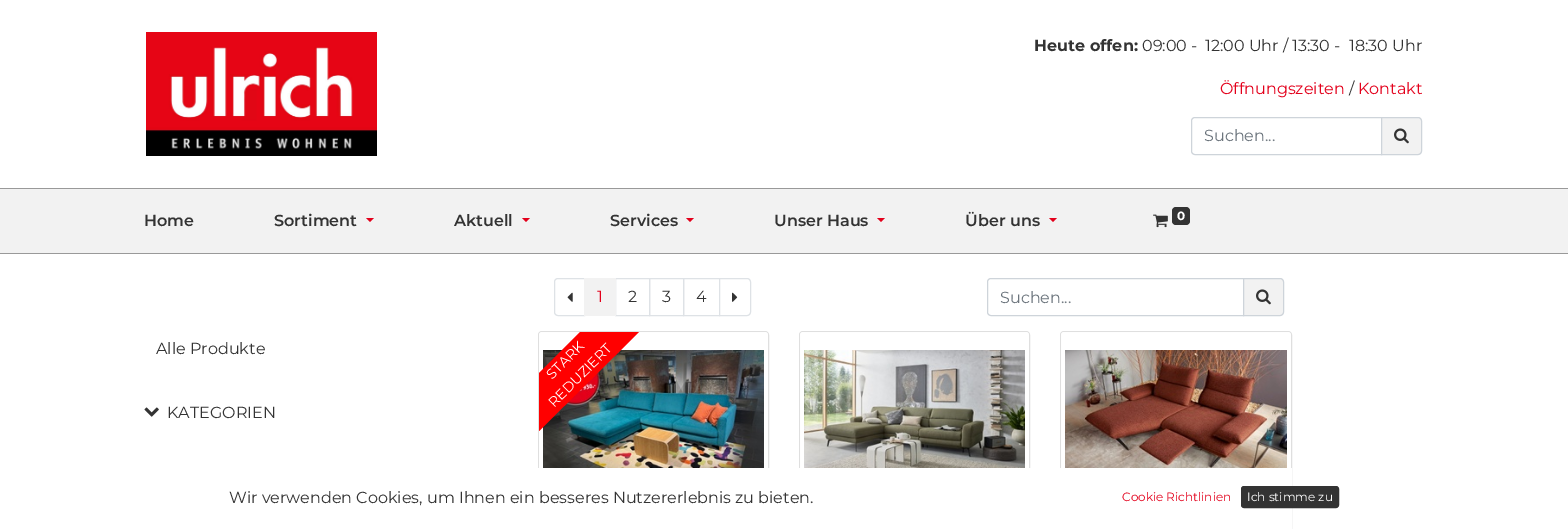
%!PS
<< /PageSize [1568 529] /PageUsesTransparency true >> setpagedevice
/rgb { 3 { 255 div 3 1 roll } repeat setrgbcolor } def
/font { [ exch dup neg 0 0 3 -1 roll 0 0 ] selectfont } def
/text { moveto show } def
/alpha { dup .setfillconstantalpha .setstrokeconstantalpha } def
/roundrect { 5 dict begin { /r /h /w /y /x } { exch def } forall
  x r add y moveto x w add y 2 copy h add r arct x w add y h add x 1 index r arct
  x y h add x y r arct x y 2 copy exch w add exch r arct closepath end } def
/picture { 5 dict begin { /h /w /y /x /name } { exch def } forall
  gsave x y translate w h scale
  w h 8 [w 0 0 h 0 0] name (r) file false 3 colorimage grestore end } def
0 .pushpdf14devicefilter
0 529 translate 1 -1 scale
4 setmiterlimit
255 255 255 rgb
0 0 1568 529 rectfill
(img_01.rgb) 146 32 231 124 picture
206 212 218 rgb
1195 117.5 moveto 186.5 0 rlineto 0 37 rlineto -186.5 0 rlineto -2 0 -3.5 -1.5 -3.5 -3.5 rcurveto 0 -30 rlineto 0 -2 1.5 -3.5 3.5 -3.5 rcurveto closepath stroke
242 242 242 rgb
1381.5 117.5 moveto 36.5 0 rlineto 2 0 3.5 1.5 3.5 3.5 rcurveto 0 30 rlineto 0 2 -1.5 3.5 -3.5 3.5 rcurveto -36.5 0 rlineto closepath gsave fill grestore
206 212 218 rgb
stroke
(img_02.rgb) 1394 128 15 16 picture
242 242 242 rgb
0 189 1568 64 rectfill
153 153 153 rgb
0 188 1568 1 rectfill
0 253 1568 1 rectfill
227 0 27 rgb
366 218 moveto 8 0 rlineto -4 4 rlineto closepath fill
522 218 moveto 8 0 rlineto -4 4 rlineto closepath fill
686 218 moveto 8 0 rlineto -4 4 rlineto closepath fill
877 218 moveto 8 0 rlineto -4 4 rlineto closepath fill
1049 218 moveto 8 0 rlineto -4 4 rlineto closepath fill
(img_03.rgb) 1153 214 15 14 picture
51 51 51 rgb
1172 207 18 18 4 roundrect fill
222 226 230 rgb
558 278.5 moveto 26.5 0 rlineto 0 37 rlineto -26.5 0 rlineto -2 0 -3.5 -1.5 -3.5 -3.5 rcurveto 0 -30 rlineto 0 -2 1.5 -3.5 3.5 -3.5 rcurveto closepath stroke
(img_04.rgb) 567 292 6 10 picture
615.5 278.5 34 37 rectstroke
242 242 242 rgb
584 278 32 38 rectfill
222 226 230 rgb
649.5 278.5 34 37 rectstroke
683.5 278.5 36 37 rectstroke
255 255 255 rgb
719.5 278.5 moveto 27.5 0 rlineto 2 0 3.5 1.5 3.5 3.5 rcurveto 0 30 rlineto 0 2 -1.5 3.5 -3.5 3.5 rcurveto -27.5 0 rlineto closepath gsave fill grestore
222 226 230 rgb
stroke
(img_05.rgb) 732 292 6 10 picture
206 212 218 rgb
991 278.5 moveto 252.5 0 rlineto 0 37 rlineto -252.5 0 rlineto -2 0 -3.5 -1.5 -3.5 -3.5 rcurveto 0 -30 rlineto 0 -2 1.5 -3.5 3.5 -3.5 rcurveto closepath stroke
242 242 242 rgb
1243.5 278.5 moveto 36.5 0 rlineto 2 0 3.5 1.5 3.5 3.5 rcurveto 0 30 rlineto 0 2 -1.5 3.5 -3.5 3.5 rcurveto -36.5 0 rlineto closepath gsave fill grestore
206 212 218 rgb
stroke
(img_02.rgb) 1256 289 15 16 picture
(img_06.rgb) 144 407 15 10 picture
223 223 223 rgb
538.5 331.5 230 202 3.5 roundrect stroke
0.9 alpha
255 255 255 rgb
542 332 moveto 223 0 rlineto 1.5 0 3 1.5 3 3 rcurveto 0 157 rlineto -229 0 rlineto 0 -157 rlineto 0 -1.5 1.5 -3 3 -3 rcurveto closepath fill
1 alpha
(img_07.rgb) 543 350 221 118 picture
255 0 0 rgb
580 332 moveto 59 0 rlineto -100 99 rlineto 0 -58 rlineto closepath fill
223 223 223 rgb
799.5 331.5 230 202 3.5 roundrect stroke
0.9 alpha
255 255 255 rgb
803 332 moveto 223 0 rlineto 1.5 0 3 1.5 3 3 rcurveto 0 157 rlineto -229 0 rlineto 0 -157 rlineto 0 -1.5 1.5 -3 3 -3 rcurveto closepath fill
1 alpha
(img_08.rgb) 804 350 221 118 picture
223 223 223 rgb
1060.5 331.5 231 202 3.5 roundrect stroke
0.9 alpha
255 255 255 rgb
1064 332 moveto 224 0 rlineto 1.5 0 3 1.5 3 3 rcurveto 0 157 rlineto -230 0 rlineto 0 -157 rlineto 0 -1.5 1.5 -3 3 -3 rcurveto closepath fill
1 alpha
(img_09.rgb) 1065 350 222 118 picture
538 468 754 61 rectfill
51 51 51 rgb
1241.5 486.5 97 21 2.5 roundrect gsave fill grestore
stroke
/Montserrat-Bold 16 font
(Heute offen:) 1034 51 text
/Montserrat-Regular 16 font
(09:00 -) 1142 51 text
(12:00 Uhr / 13:30 -) 1205 51 text
(18:30 Uhr) 1349 51 text
227 0 27 rgb
(Öffnungszeiten) 1220 94 text
51 51 51 rgb
(/) 1349 94 text
227 0 27 rgb
(Kontakt) 1358 94 text
108 117 125 rgb
(Suchen...) 1204 141 text
/Montserrat-SemiBold 16 font
51 51 51 rgb
(Home) 144 226 text
(Sortiment) 274 226 text
(Aktuell) 454 226 text
(Services) 610 226 text
(Unser Haus) 774 226 text
(Über uns) 965 226 text
/Montserrat-Bold 12 font
255 255 255 rgb
(0) 1177 220 text
/Montserrat-Regular 16 font
227 0 27 rgb
(1) 597 302 text
51 51 51 rgb
(2) 628 302 text
(3) 662 302 text
(4) 696 302 text
108 117 125 rgb
(Suchen...) 1000 303 text
51 51 51 rgb
(Alle Produkte) 156 354 text
(KATEGORIEN) 167 418 text
/Montserrat-Regular 14 font
255 255 255 rgb
gsave 552 380 translate -45 rotate 0 0 moveto (STARK) show grestore
gsave 554 408 translate -45 rotate 0 0 moveto (REDUZIERT) show grestore
/Montserrat-Regular 16 font
51 51 51 rgb
(Wir verwenden Cookies, um Ihnen ein besseres Nutzererlebnis zu bieten.) 229 503 text
/Montserrat-Regular 12 font
227 0 27 rgb
(Cookie Richtlinien) 1122 501 text
255 255 255 rgb
(Ich stimme zu) 1247 501 text
.poppdf14devicefilter showpage
